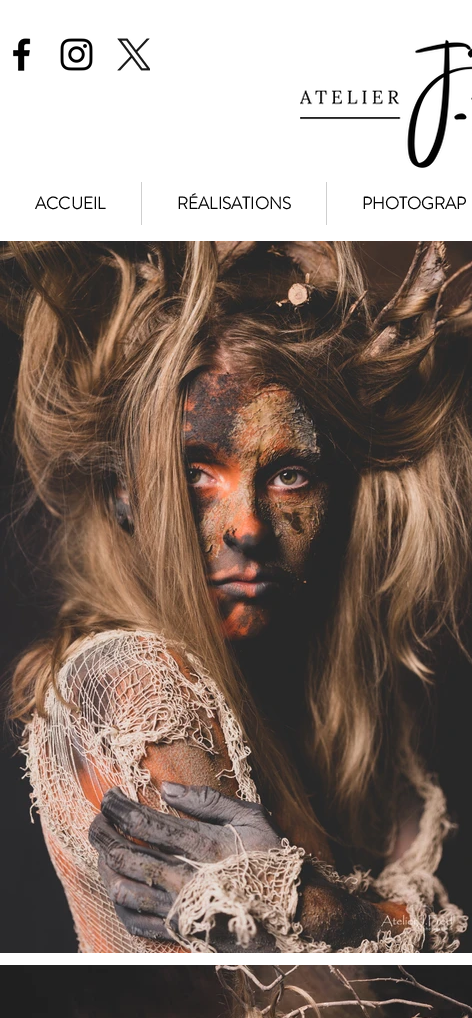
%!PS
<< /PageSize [472 1018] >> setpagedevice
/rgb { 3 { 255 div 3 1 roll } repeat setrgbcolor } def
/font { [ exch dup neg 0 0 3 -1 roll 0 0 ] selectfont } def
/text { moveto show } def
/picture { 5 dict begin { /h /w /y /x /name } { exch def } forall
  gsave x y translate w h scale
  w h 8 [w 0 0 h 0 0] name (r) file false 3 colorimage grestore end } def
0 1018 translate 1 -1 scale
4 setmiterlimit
255 255 255 rgb
0 0 472 1018 rectfill
(img_01.rgb) 13 38 18 33 picture
(img_02.rgb) 60 38 33 33 picture
(img_03.rgb) 117 38 33 33 picture
(img_04.rgb) 300 39 172 129 picture
207 207 207 rgb
141 182 1 43 rectfill
326 182 1 43 rectfill
(img_05.rgb) 0 241 472 712 picture
(img_06.rgb) 0 965 472 53 picture
/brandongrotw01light-Bold 17 font
5 5 5 rgb
(ACCUEIL) 35 209 text
(RÉALISATIONS) 177 209 text
(PHOTOGRAP) 362 209 text
showpage
